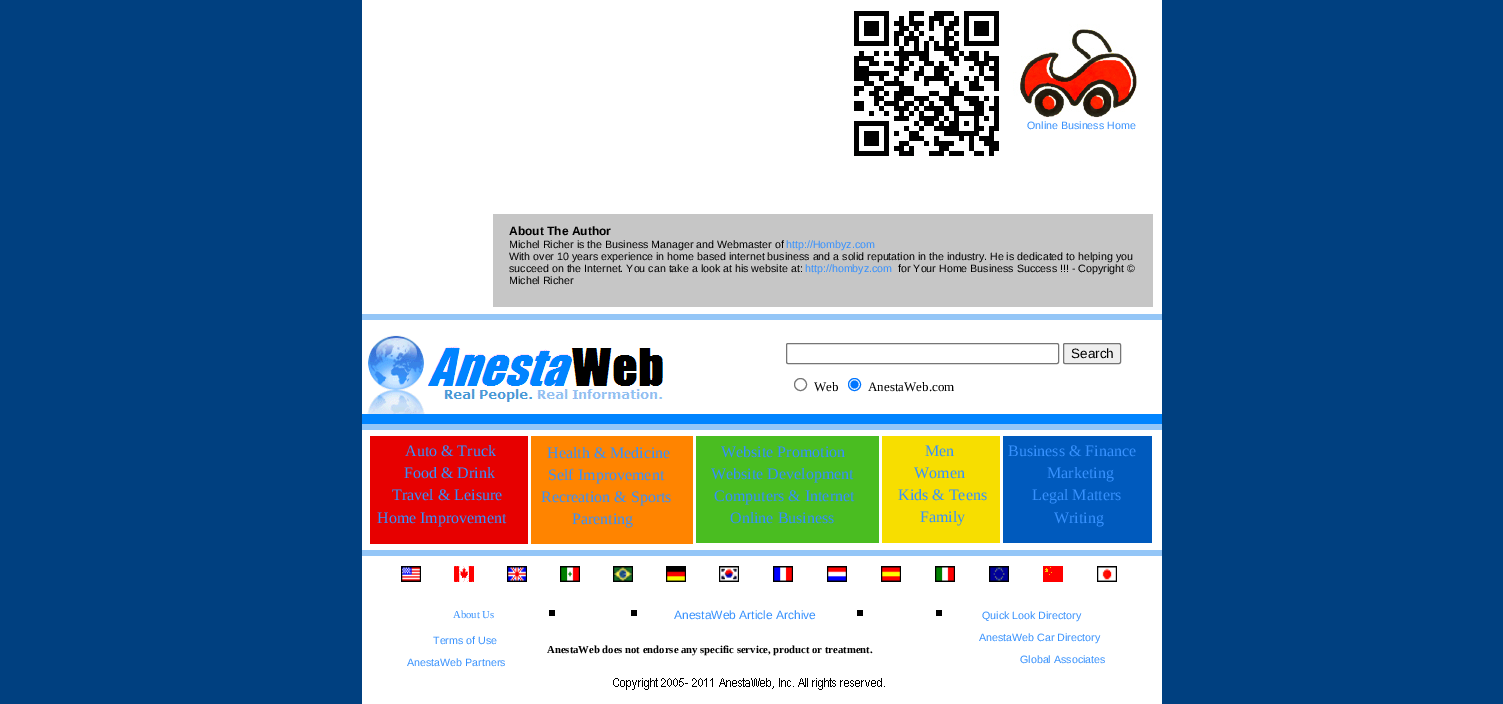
%!PS
<< /PageSize [1503 704] >> setpagedevice
/rgb { 3 { 255 div 3 1 roll } repeat setrgbcolor } def
/font { [ exch dup neg 0 0 3 -1 roll 0 0 ] selectfont } def
/text { moveto show } def
/circle { newpath 0 360 arc closepath } def
/roundrect { 5 dict begin { /r /h /w /y /x } { exch def } forall
  x r add y moveto x w add y 2 copy h add r arct x w add y h add x 1 index r arct
  x y h add x y r arct x y 2 copy exch w add exch r arct closepath end } def
/picture { 5 dict begin { /h /w /y /x /name } { exch def } forall
  gsave x y translate w h scale
  w h 8 [w 0 0 h 0 0] name (r) file false 3 colorimage grestore end } def
0 704 translate 1 -1 scale
4 setmiterlimit
0 64 128 rgb
0 0 1503 704 rectfill
255 255 255 rgb
362 0 800 704 rectfill
(img_01.rgb) 854 11 145 145 picture
(img_02.rgb) 1013 24 127 94 picture
198 198 198 rgb
493 214 660 93 rectfill
148 198 247 rgb
362 314 800 6 rectfill
(img_03.rgb) 367 335 58 79 picture
(img_04.rgb) 428 346 235 40 picture
118 118 118 rgb
786.5 343.5 272 20 1.5 roundrect stroke
239 239 239 rgb
1063.5 343.5 57 20 1.5 roundrect gsave fill grestore
118 118 118 rgb
stroke
800.5 384.5 6 circle stroke
0 117 255 rgb
854.5 384.5 6 circle stroke
854.5 384.5 4 circle fill
(img_05.rgb) 444 388 219 14 picture
0 132 255 rgb
362 414 800 10 rectfill
148 198 247 rgb
362 424 800 6 rectfill
231 0 0 rgb
370 436 158 108 rectfill
255 132 0 rgb
531 436 162 108 rectfill
74 189 33 rgb
696 436 183 107 rectfill
247 222 0 rgb
882 436 118 107 rectfill
0 90 189 rgb
1003 436 149 107 rectfill
148 198 247 rgb
362 550 800 6 rectfill
(img_06.rgb) 401 566 20 16 picture
(img_07.rgb) 454 566 20 16 picture
(img_08.rgb) 507 566 20 16 picture
(img_09.rgb) 560 566 20 16 picture
(img_10.rgb) 613 566 20 16 picture
(img_11.rgb) 666 566 20 16 picture
(img_12.rgb) 719 566 20 16 picture
(img_13.rgb) 773 566 20 16 picture
(img_14.rgb) 827 566 20 16 picture
(img_15.rgb) 881 566 20 16 picture
(img_16.rgb) 935 566 20 16 picture
(img_17.rgb) 989 566 20 16 picture
(img_18.rgb) 1043 566 20 16 picture
(img_19.rgb) 1097 566 20 16 picture
0 0 0 rgb
549 610 6 6 rectfill
631 610 6 6 rectfill
857 610 6 6 rectfill
936 610 6 6 rectfill
(img_20.rgb) 613 678 272 12 picture
/LiberationSans-Regular 10.67 font
55 145 253 rgb
(Online Business Home) 1027 129 text
/LiberationSans-Bold 12 font
0 0 0 rgb
(About The Author) 509 235 text
/LiberationSans-Regular 10.67 font
(Michel Richer is the Business Manager and Webmaster of) 509 248 text
55 145 253 rgb
(http://Hombyz.com) 786 248 text
0 0 0 rgb
(With over 10 years experience in home based internet business and a solid reputation in the industry. He is dedicated to helping you) 509 260 text
(succeed on the Internet. You can take a look at his website at:) 509 272 text
55 145 253 rgb
(http://hombyz.com) 805 272 text
0 0 0 rgb
(for Your Home Business Success !!! - Copyright ©) 898 272 text
(Michel Richer) 509 284 text
/LiberationSans-Regular 13.5 font
(Search) 1071 358 text
/LiberationSerif-Regular 13 font
(Web) 814 391 text
(AnestaWeb.com) 868 391 text
/LiberationSerif-Regular 16 font
55 145 253 rgb
(Auto & Truck) 405 456 text
(Health & Medicine) 547 458 text
(Website Promotion) 721 457 text
(Men) 925 456 text
(Business & Finance) 1008 456 text
(Food & Drink) 404 478 text
(Self Improvement) 548 480 text
(Website Development) 711 479 text
(Women) 914 478 text
(Marketing) 1047 478 text
(Travel & Leisure) 392 500 text
(Recreation & Sports) 541 502 text
(Computers & Internet) 714 501 text
(Kids & Teens) 898 500 text
(Legal Matters) 1032 500 text
(Home Improvement) 377 523 text
(Parenting) 572 524 text
(Online Business) 730 523 text
(Family) 920 522 text
(Writing) 1054 523 text
/LiberationSerif-Regular 10.67 font
(About Us) 453 618 text
/LiberationSans-Regular 12 font
(AnestaWeb Article Archive) 674 619 text
/LiberationSans-Regular 10.67 font
(Quick Look Directory) 982 619 text
(Terms of Use) 433 644 text
(AnestaWeb Car Directory) 979 641 text
/LiberationSerif-Bold 10.67 font
0 0 0 rgb
(AnestaWeb does not endorse any specific service, product or treatment.) 547 653 text
/LiberationSans-Regular 10.67 font
55 145 253 rgb
(AnestaWeb Partners) 407 666 text
(Global Associates) 1020 663 text
showpage
